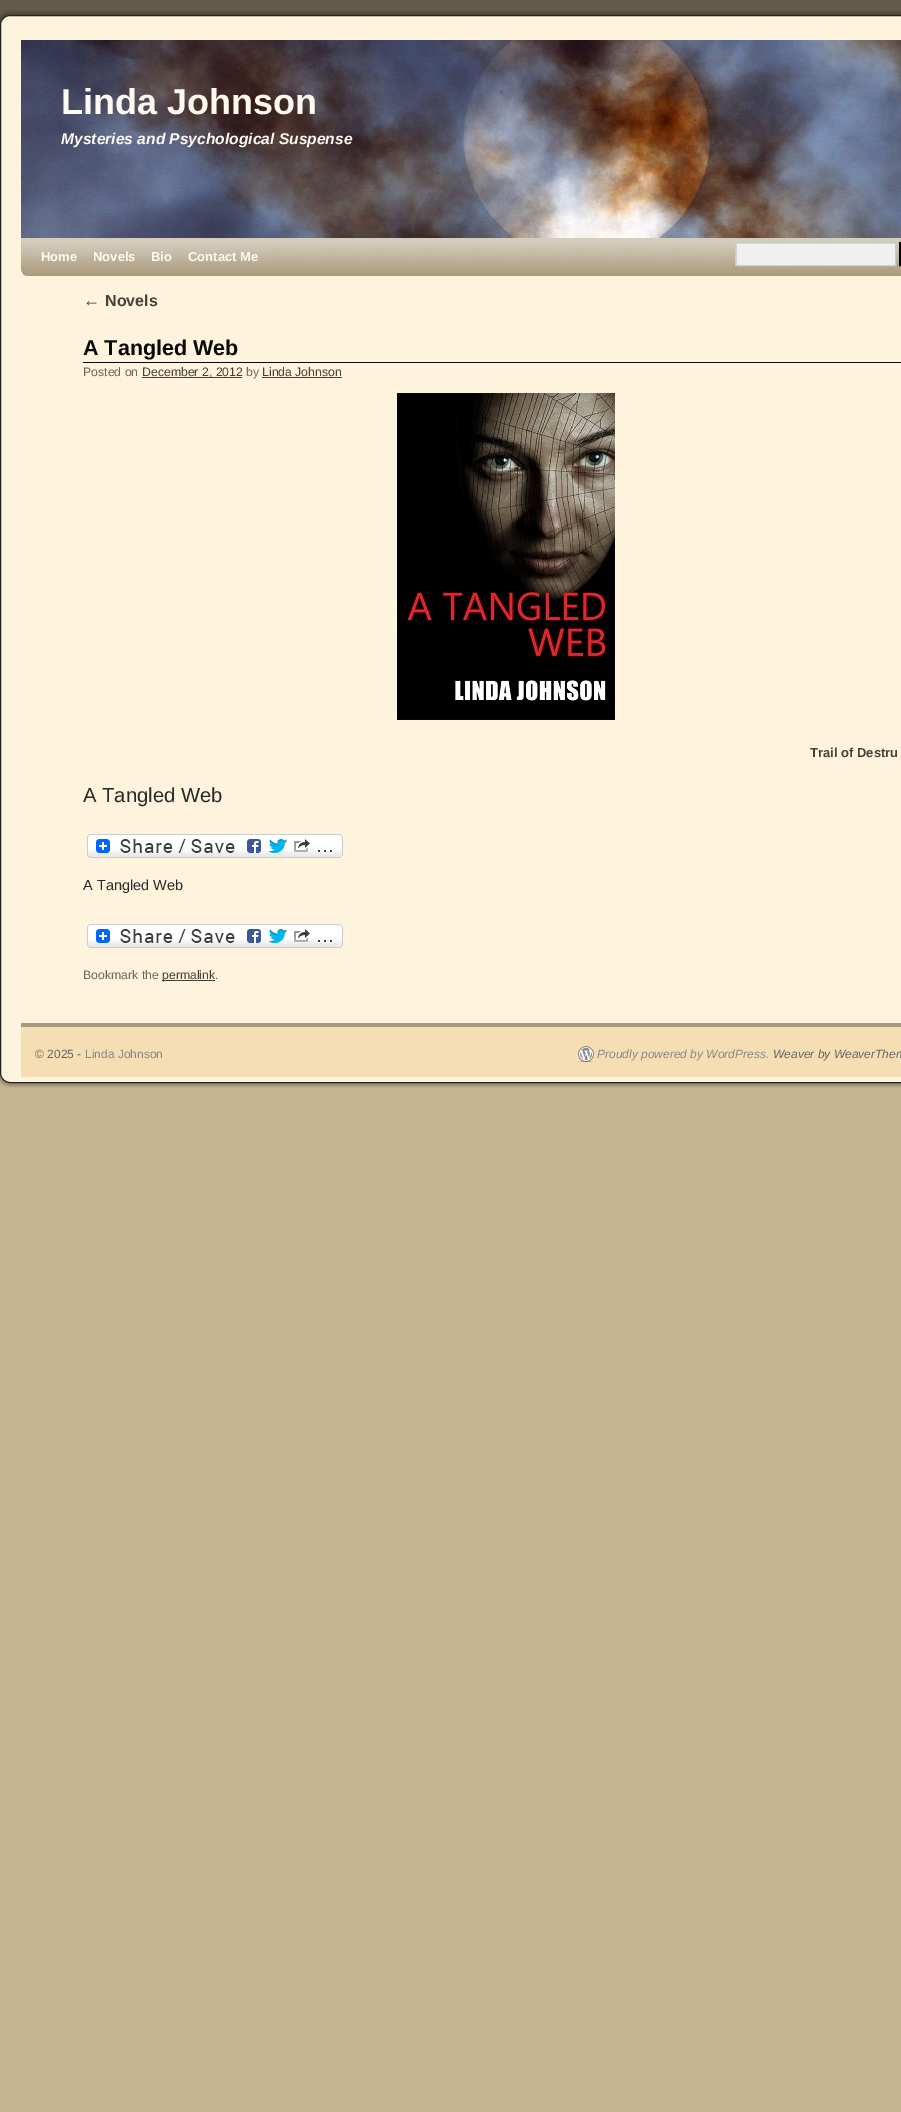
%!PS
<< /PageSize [901 2112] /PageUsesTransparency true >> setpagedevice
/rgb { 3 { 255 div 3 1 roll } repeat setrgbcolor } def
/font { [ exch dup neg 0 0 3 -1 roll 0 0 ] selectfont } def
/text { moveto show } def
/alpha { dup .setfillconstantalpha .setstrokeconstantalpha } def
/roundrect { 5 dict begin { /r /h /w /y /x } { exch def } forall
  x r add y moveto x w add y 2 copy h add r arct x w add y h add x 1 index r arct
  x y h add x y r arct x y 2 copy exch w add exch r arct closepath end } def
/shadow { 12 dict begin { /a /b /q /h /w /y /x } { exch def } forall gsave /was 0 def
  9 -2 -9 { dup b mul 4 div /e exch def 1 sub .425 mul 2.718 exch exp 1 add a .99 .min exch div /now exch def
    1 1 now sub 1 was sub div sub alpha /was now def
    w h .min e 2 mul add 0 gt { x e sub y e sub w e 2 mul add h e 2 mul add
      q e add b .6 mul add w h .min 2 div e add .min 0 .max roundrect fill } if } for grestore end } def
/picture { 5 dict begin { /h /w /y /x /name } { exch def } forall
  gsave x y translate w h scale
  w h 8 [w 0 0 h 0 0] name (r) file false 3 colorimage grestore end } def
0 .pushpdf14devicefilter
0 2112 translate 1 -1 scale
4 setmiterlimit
199 180 145 rgb
0 0 901 2112 rectfill
(img_01.rgb) 0 0 901 25 picture
0 0 0 rgb
-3 12 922 1074 13 1.5 0.25 shadow
254 243 221 rgb
0.5 15.5 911 1067 9.5 roundrect gsave fill grestore
34 34 34 rgb
stroke
(img_02.rgb) 21 40 880 198 picture
171 155 125 rgb
21 238 moveto 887 0 rlineto 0 31 rlineto 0 4 -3 7 -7 7 rcurveto -873 0 rlineto -4 0 -7 -3 -7 -7 rcurveto closepath fill
(img_03.rgb) 21 238 880 36 picture
240 240 240 rgb
737 244 158 21 rectfill
gsave
736 243 159 22 rectclip
216 216 216 rgb
637 144 moveto 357 0 rlineto 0 220 rlineto -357 0 rlineto closepath 737 244 moveto 159 0 rlineto 0 22 rlineto -159 0 rlineto closepath eofill
grestore
204 204 204 rgb
735.5 242.5 160 23 rectstroke
0 0 0 rgb
2 setlinewidth
900 243 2 22 rectstroke
10 10 10 rgb
83 362 818 1 rectfill
71 65 52 rgb
142 377 100 1 rectfill
262 377 80 1 rectfill
(img_04.rgb) 397 393 218 327 picture
(img_05.rgb) 87 834 256 24 picture
(img_05.rgb) 87 924 256 24 picture
162 980 53 1 rectfill
245 222 179 rgb
21 1027 880 50 rectfill
171 155 125 rgb
21 1023 880 4 rectfill
(img_06.rgb) 578 1046 16 16 picture
/LiberationSans-Bold 36 font
254 249 238 rgb
(Linda Johnson) 61 114 text
/LiberationSans-BoldItalic 15.6 font
(Mysteries and Psychological Suspense) 61 144 text
/LiberationSans-Bold 13 font
(Home) 41 261 text
(Novels) 93 261 text
(Bio) 151 261 text
(Contact Me) 188 261 text
/LiberationSans-Italic 17 font
71 65 52 rgb
(←) 83 306 text
/LiberationSans-Bold 16 font
(Novels) 105 306 text
/LiberationSans-Bold 21.5 font
10 10 10 rgb
(A Tangled Web) 83 355 text
/LiberationSans-Regular 12.25 font
112 103 82 rgb
(Posted on) 83 376 text
71 65 52 rgb
(December 2, 2012) 142 376 text
112 103 82 rgb
(by) 246 376 text
71 65 52 rgb
(Linda Johnson) 262 376 text
/LiberationSans-Bold 13 font
(Trail of Destru) 810 757 text
/LiberationSans-Regular 20.25 font
41 41 41 rgb
(A Tangled Web) 83 802 text
/LiberationSans-Regular 14.5 font
(A Tangled Web) 83 890 text
/LiberationSans-Regular 12.25 font
112 103 82 rgb
(Bookmark the) 83 979 text
71 65 52 rgb
(permalink) 162 979 text
112 103 82 rgb
(.) 215 979 text
/LiberationSans-Regular 12 font
102 102 102 rgb
(© 2025 -) 35 1058 text
136 136 136 rgb
(Linda Johnson) 85 1058 text
/LiberationSans-Italic 12 font
(Proudly powered by WordPress.) 597 1058 text
102 102 102 rgb
(Weaver by WeaverThem) 773 1058 text
.poppdf14devicefilter showpage
